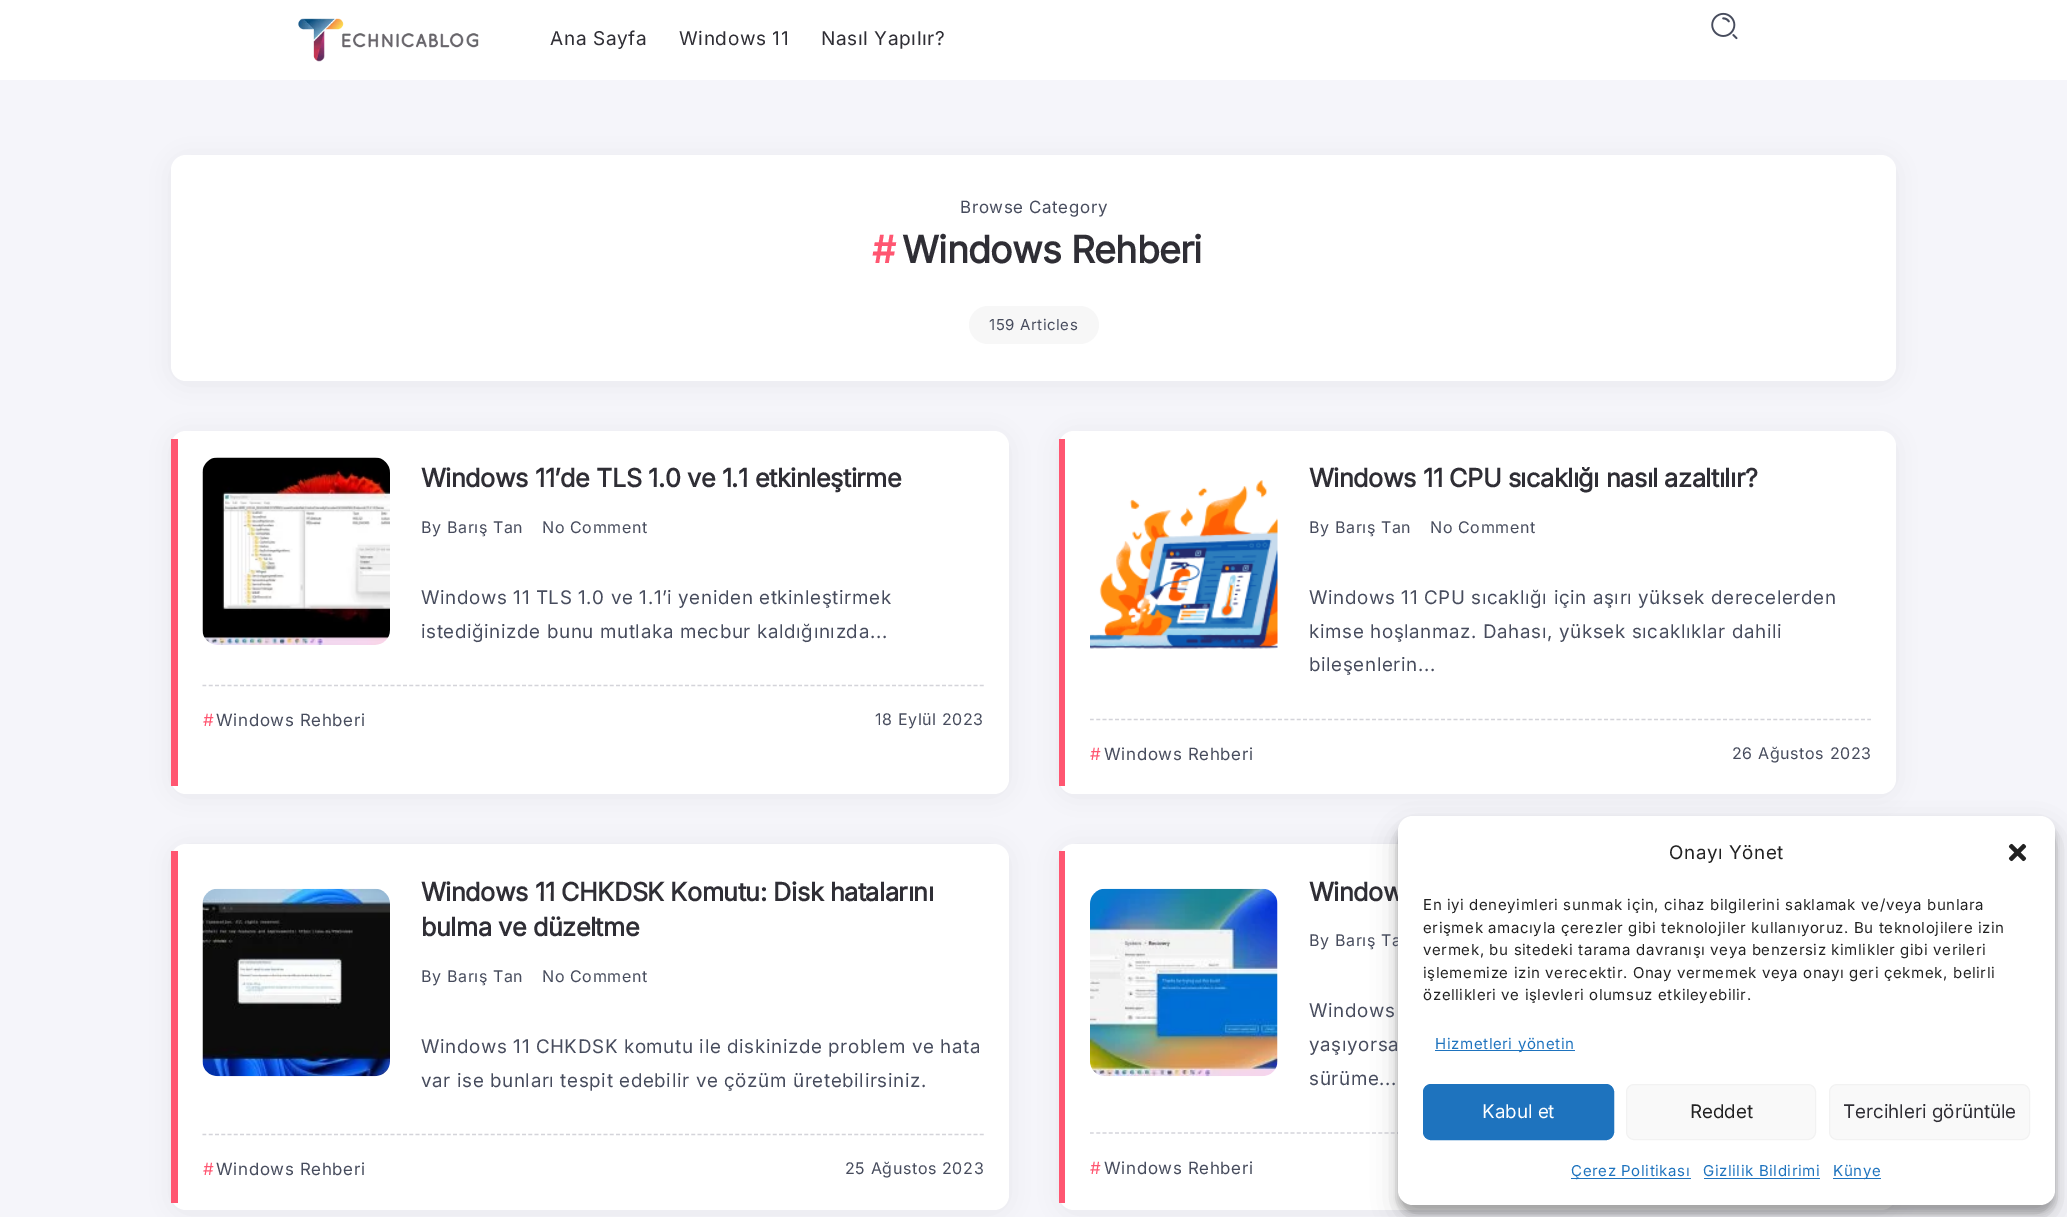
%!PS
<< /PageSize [2067 1217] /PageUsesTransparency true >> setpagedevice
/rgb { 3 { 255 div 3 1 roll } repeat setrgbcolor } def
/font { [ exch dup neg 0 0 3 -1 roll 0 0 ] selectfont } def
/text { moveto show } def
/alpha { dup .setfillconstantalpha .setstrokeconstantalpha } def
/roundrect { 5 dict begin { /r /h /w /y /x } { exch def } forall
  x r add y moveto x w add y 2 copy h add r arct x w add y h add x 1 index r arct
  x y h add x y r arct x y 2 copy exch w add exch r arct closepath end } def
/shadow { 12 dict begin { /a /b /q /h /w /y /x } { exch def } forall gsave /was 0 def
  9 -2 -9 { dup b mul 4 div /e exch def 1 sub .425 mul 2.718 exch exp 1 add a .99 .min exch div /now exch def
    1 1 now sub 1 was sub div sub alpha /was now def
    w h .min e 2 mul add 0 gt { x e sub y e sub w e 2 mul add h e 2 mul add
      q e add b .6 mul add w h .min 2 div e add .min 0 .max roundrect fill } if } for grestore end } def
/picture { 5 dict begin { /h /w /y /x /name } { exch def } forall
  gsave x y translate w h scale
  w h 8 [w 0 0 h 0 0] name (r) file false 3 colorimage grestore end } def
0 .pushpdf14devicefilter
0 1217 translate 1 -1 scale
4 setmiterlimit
245 245 250 rgb
0 0 2067 1217 rectfill
255 255 255 rgb
0 0 2067 80 rectfill
(img_01.rgb) 298 18 181 44 picture
(img_02.rgb) 1711 12 27 28 picture
14 14 19 rgb
171 158 1725 226 15 12.5 0.05 shadow
255 255 255 rgb
171 155 1725 226 15 roundrect fill
247 247 247 rgb
969 306 130 38 19 roundrect fill
14 14 19 rgb
171 434 838 362 15 12.5 0.05 shadow
255 255 255 rgb
171 431 838 363 15 roundrect fill
255 86 113 rgb
171 439 7 347 rectfill
(img_03.rgb) 202 457 188 188 picture
212 212 218 rgb
1.2 setlinewidth
[3.75 2.52] 0 setdash
202.5 685.5 moveto 781.5 0 rlineto stroke
14 14 19 rgb
1059 434 837 362 15 12.5 0.05 shadow
255 255 255 rgb
1059 431 837 363 15 roundrect fill
255 86 113 rgb
1059 439 6 347 rectfill
(img_04.rgb) 1090 480 188 169 picture
212 212 218 rgb
1090 719.5 moveto 781 0 rlineto stroke
14 14 19 rgb
171 846 838 367 15 12.5 0.05 shadow
255 255 255 rgb
171 844 838 366 15 roundrect fill
255 86 113 rgb
171 851 7 352 rectfill
(img_05.rgb) 202 888 188 189 picture
212 212 218 rgb
202.5 1134.5 moveto 781.5 0 rlineto stroke
14 14 19 rgb
1059 846 837 367 15 12.5 0.05 shadow
255 255 255 rgb
1059 844 837 366 15 roundrect fill
255 86 113 rgb
1059 851 6 352 rectfill
(img_06.rgb) 1090 888 188 189 picture
212 212 218 rgb
1090 1133 moveto 781 0 rlineto stroke
0 0 0 rgb
1398 824 657 389 15 4 0.23 shadow
1398 829 657 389 15 12.5 0.19 shadow
/Inter-Regular 19 font
47 46 53 rgb
550 45 moveto 0.62 0 (Ana Sayfa) ashow
679 45 moveto 0.62 0 (Windows 11) ashow
821 45 moveto 0.62 0 (Nasıl Yapılır?) ashow
/Inter-Regular 16.9 font
71 76 93 rgb
960 213 moveto 0.62 0 (Browse Category) ashow
/Inter-Bold 37.5 font
255 86 113 rgb
872 263 moveto -0.75 0 (#) ashow
47 46 53 rgb
902 263 moveto -0.75 0 (Windows Rehberi) ashow
/Inter-Regular 15 font
71 76 93 rgb
989 330 moveto 0.62 0 (159 Articles) ashow
/Inter-Bold 25.3 font
47 46 53 rgb
421 487 moveto -0.5 0 (Windows 11’de TLS 1.0 ve 1.1 etkinleştirme) ashow
/Inter-Regular 16 font
71 76 93 rgb
421 533 moveto 0.62 0 (By Barış Tan) ashow
542 533 moveto 0.62 0 (No Comment) ashow
/Inter-Regular 18.75 font
421 604 moveto 0.62 0 (Windows 11 TLS 1.0 ve 1.1’i yeniden etkinleştirmek) ashow
421 638 moveto 0.62 0 (istediğinizde bunu mutlaka mecbur kaldığınızda...) ashow
/Inter-Regular 16.9 font
255 86 113 rgb
203 726 moveto 0.62 0 (#) ashow
71 76 93 rgb
216 726 moveto 0.62 0 (Windows Rehberi) ashow
/Inter-Regular 16 font
875 725 moveto 0.62 0 (18 Eylül 2023) ashow
/Inter-Bold 25.3 font
47 46 53 rgb
1309 487 moveto -0.5 0 (Windows 11 CPU sıcaklığı nasıl azaltılır?) ashow
/Inter-Regular 16 font
71 76 93 rgb
1309 533 moveto 0.62 0 (By Barış Tan) ashow
1430 533 moveto 0.62 0 (No Comment) ashow
/Inter-Regular 18.75 font
1309 604 moveto 0.62 0 (Windows 11 CPU sıcaklığı için aşırı yüksek derecelerden) ashow
1309 638 moveto 0.62 0 (kimse hoşlanmaz. Dahası, yüksek sıcaklıklar dahili) ashow
1309 671 moveto 0.62 0 (bileşenlerin...) ashow
/Inter-Regular 16.9 font
255 86 113 rgb
1090 760 moveto 0.62 0 (#) ashow
71 76 93 rgb
1104 760 moveto 0.62 0 (Windows Rehberi) ashow
/Inter-Regular 16 font
1732 759 moveto 0.62 0 (26 Ağustos 2023) ashow
/Inter-Bold 25.3 font
47 46 53 rgb
421 901 moveto -0.5 0 (Windows 11 CHKDSK Komutu: Disk hatalarını) ashow
421 936 moveto -0.5 0 (bulma ve düzeltme) ashow
/Inter-Regular 16 font
71 76 93 rgb
421 982 moveto 0.62 0 (By Barış Tan) ashow
542 982 moveto 0.62 0 (No Comment) ashow
/Inter-Regular 18.75 font
421 1053 moveto 0.62 0 (Windows 11 CHKDSK komutu ile diskinizde problem ve hata) ashow
421 1087 moveto 0.62 0 (var ise bunları tespit edebilir ve çözüm üretebilirsiniz.) ashow
/Inter-Regular 16.9 font
255 86 113 rgb
203 1175 moveto 0.62 0 (#) ashow
71 76 93 rgb
216 1175 moveto 0.62 0 (Windows Rehberi) ashow
/Inter-Regular 16 font
845 1174 moveto 0.62 0 (25 Ağustos 2023) ashow
/Inter-Bold 25.3 font
47 46 53 rgb
1309 901 moveto -0.5 0 (Window) ashow
/Inter-Regular 16 font
71 76 93 rgb
1309 946 moveto 0.62 0 (By Barış Ta) ashow
/Inter-Regular 18.75 font
1309 1017 moveto 0.62 0 (Windows) ashow
1309 1051 moveto 0.62 0 (yaşıyorsa) ashow
1309 1085 moveto 0.62 0 (sürüme...) ashow
/Inter-Regular 16.9 font
255 86 113 rgb
1090 1174 moveto 0.62 0 (#) ashow
71 76 93 rgb
1104 1174 moveto 0.62 0 (Windows Rehberi) ashow
255 255 255 rgb
1398 816 657 389 15 roundrect fill
/Inter-Regular 18.75 font
34 34 34 rgb
1669 859 moveto 0.62 0 (Onayı Yönet) ashow
(img_07.rgb) 2008 843 19 19 picture
/Inter-Regular 15 font
1423 910 moveto 0.62 0 (En iyi deneyimleri sunmak için, cihaz bilgilerini saklamak ve/veya bunlara) ashow
1423 933 moveto 0.62 0 (erişmek amacıyla çerezler gibi teknolojiler kullanıyoruz. Bu teknolojilere izin) ashow
1423 955 moveto 0.62 0 (vermek, bu sitedeki tarama davranışı veya benzersiz kimlikler gibi verileri) ashow
1423 978 moveto 0.62 0 (işlememize izin verecektir. Onay vermemek veya onayı geri çekmek, belirli) ashow
1423 1000 moveto 0.62 0 (özellikleri ve işlevleri olumsuz etkileyebilir.) ashow
30 115 190 rgb
1435 1050 140 1 rectfill
1435 1049 moveto 0.62 0 (Hizmetleri yönetin) ashow
1423.5 1084.5 190 55 7.5 roundrect gsave fill grestore
1 setlinewidth
[] 0 setdash
stroke
/Inter-Regular 18.75 font
255 255 255 rgb
(Kabul et) 1482 1118 text
249 249 249 rgb
1626.5 1084.5 189 55 7.5 roundrect gsave fill grestore
242 242 242 rgb
stroke
34 34 34 rgb
(Reddet) 1690 1118 text
249 249 249 rgb
1829.5 1084.5 200 55 7.5 roundrect gsave fill grestore
242 242 242 rgb
stroke
47 46 53 rgb
(Tercihleri görüntüle) 1843 1118 text
30 115 190 rgb
1571 1178 120 1 rectfill
/Inter-Regular 15 font
1571 1176 moveto 0.62 0 (Çerez Politikası) ashow
1703 1176 moveto 0.62 0 (Gizlilik Bildirimi) ashow
1704 1178 116 1 rectfill
1833 1178 48 1 rectfill
1833 1176 moveto 0.62 0 (Künye) ashow
.poppdf14devicefilter showpage
